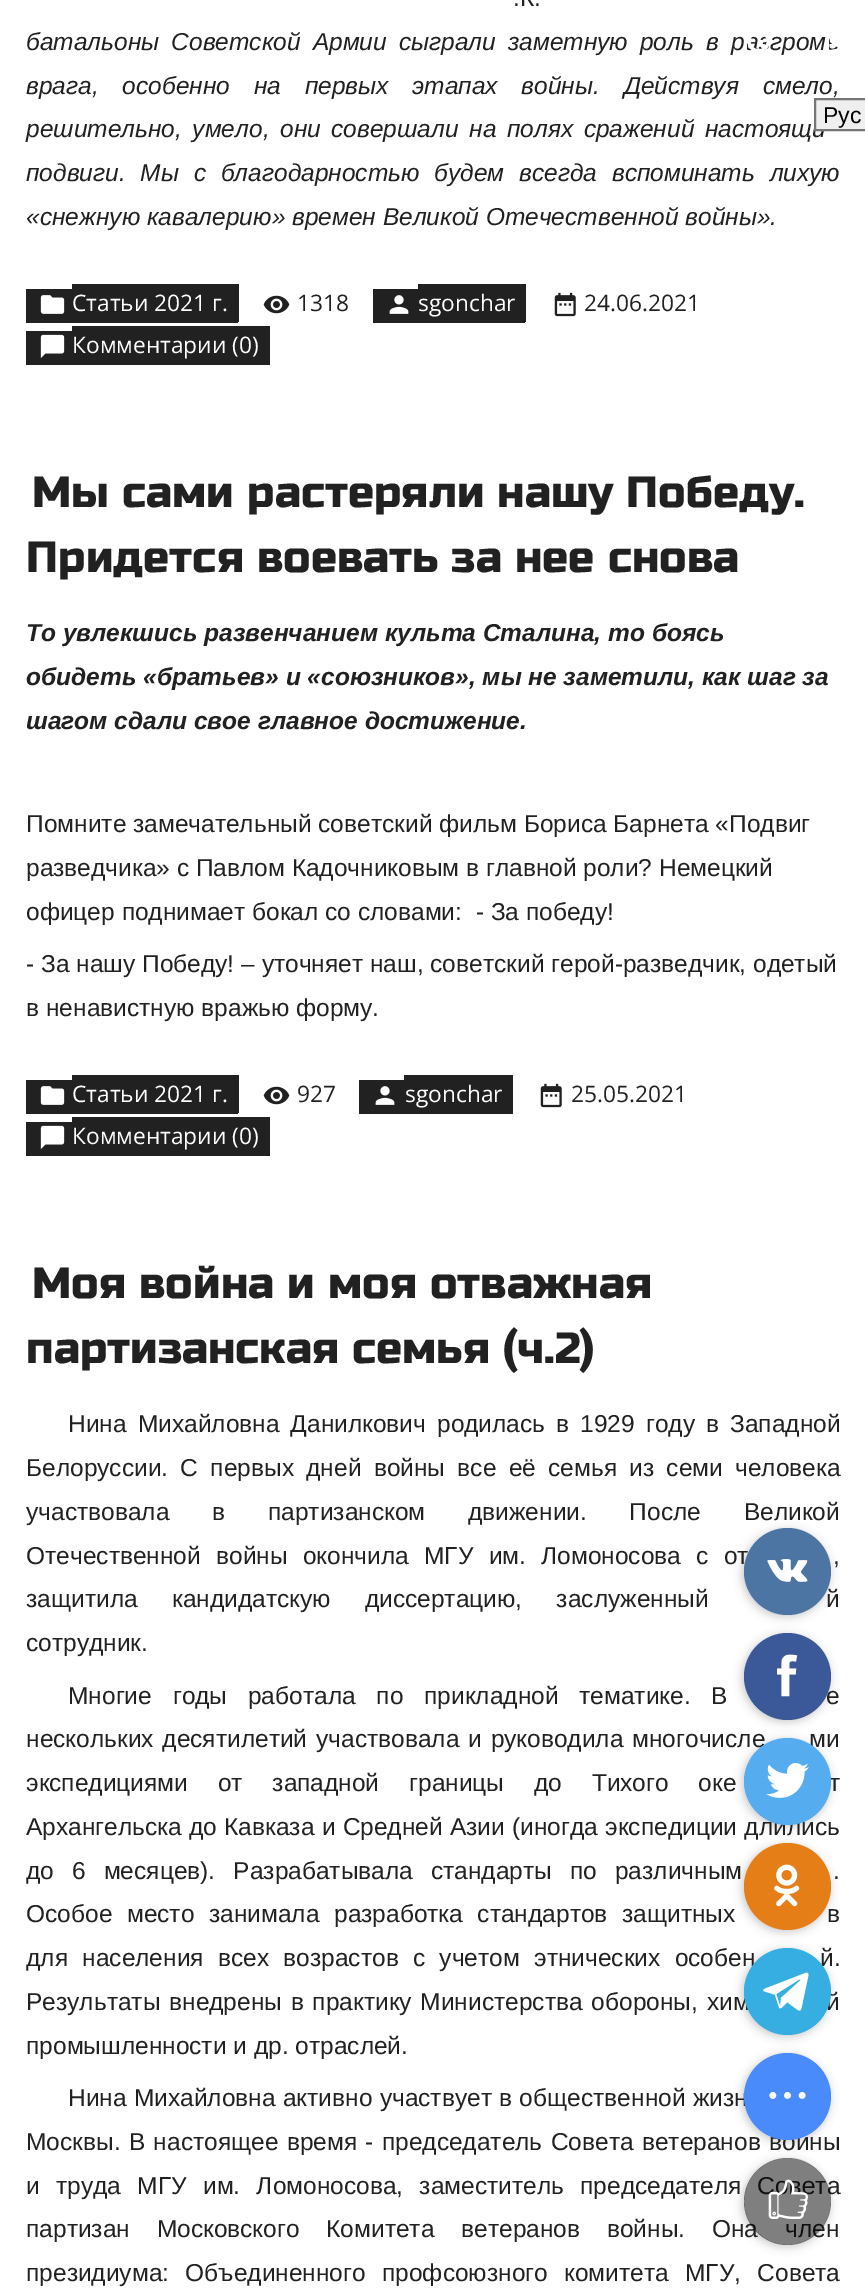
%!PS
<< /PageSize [865 2289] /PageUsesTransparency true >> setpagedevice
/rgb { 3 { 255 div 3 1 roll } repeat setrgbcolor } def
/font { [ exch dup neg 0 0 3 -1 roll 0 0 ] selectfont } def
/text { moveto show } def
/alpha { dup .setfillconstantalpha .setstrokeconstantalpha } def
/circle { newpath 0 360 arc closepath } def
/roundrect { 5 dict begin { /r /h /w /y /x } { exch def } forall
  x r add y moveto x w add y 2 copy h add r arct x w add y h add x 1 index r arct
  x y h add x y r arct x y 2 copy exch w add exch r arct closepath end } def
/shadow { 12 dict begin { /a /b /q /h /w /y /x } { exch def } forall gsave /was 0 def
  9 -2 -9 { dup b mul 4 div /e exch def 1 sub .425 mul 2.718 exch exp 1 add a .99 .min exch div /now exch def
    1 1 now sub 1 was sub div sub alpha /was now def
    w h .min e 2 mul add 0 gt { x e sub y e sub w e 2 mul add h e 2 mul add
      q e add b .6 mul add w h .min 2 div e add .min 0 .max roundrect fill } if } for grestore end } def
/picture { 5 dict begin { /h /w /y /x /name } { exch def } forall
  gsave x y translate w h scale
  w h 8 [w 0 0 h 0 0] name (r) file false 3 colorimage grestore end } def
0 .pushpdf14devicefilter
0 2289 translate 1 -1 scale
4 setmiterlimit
255 255 255 rgb
0 0 865 2289 rectfill
33 33 33 rgb
26 289 46 34 rectfill
72 284 163 35 rectfill
235 284 4 38 rectfill
72 319 166 4 rectfill
(img_01.rgb) 40 295 25 19 picture
(img_02.rgb) 263 295 27 19 picture
373 289 45 34 rectfill
418 284 104 35 rectfill
522 284 4 38 rectfill
418 319 107 4 rectfill
(img_03.rgb) 389 295 20 19 picture
(img_04.rgb) 554 292 22 25 picture
26 331 46 34 rectfill
72 326 198 39 rectfill
(img_05.rgb) 40 334 25 24 picture
26 1080 46 34 rectfill
72 1075 163 35 rectfill
235 1075 4 38 rectfill
72 1110 166 4 rectfill
(img_01.rgb) 40 1086 25 19 picture
(img_02.rgb) 263 1086 27 19 picture
359 1080 45 34 rectfill
404 1075 109 39 rectfill
(img_03.rgb) 375 1086 20 19 picture
(img_04.rgb) 540 1083 22 25 picture
26 1122 46 34 rectfill
72 1117 198 39 rectfill
(img_05.rgb) 40 1125 25 24 picture
(img_06.rgb) 747 36 23 15 picture
(img_07.rgb) 829 36 11 15 picture
0 0 0 rgb
742 1530 88 87 43.5 4.5 0.2 shadow
742 1635 88 87 43.5 4.5 0.2 shadow
742 1740 88 87 43.5 4.5 0.2 shadow
742 1845 88 87 43.5 4.5 0.2 shadow
742 1950 88 87 43.5 4.5 0.2 shadow
742 2055 88 87 43.5 4.5 0.2 shadow
gsave
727 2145 moveto 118 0 rlineto 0 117 rlineto -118 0 rlineto closepath 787.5 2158 moveto 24 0 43.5 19.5 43.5 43.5 rcurveto 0 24 -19.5 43.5 -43.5 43.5 rcurveto -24 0 -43.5 -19.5 -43.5 -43.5 rcurveto 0 -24 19.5 -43.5 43.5 -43.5 rcurveto closepath eoclip newpath
742 2160 88 87 43.5 4.5 0.2 shadow
grestore
/LiberationSans-Regular 24.5 font
33 33 33 rgb
513 6 moveto 6 0 32 (.К.) widthshow
/LiberationSans-Italic 24.5 font
26 50 moveto 5.25 0 32 (батальоны Советской Армии сыграли заметную роль в р) widthshow
770 50 moveto 5.25 0 32 (гром) widthshow
26 94 moveto 17 0 32 (врага, особенно на первых этапах войны. Действуя смело,) widthshow
26 137 moveto 3.75 0 32 (решительно, умело, они совершали на полях сражений настоящи) widthshow
26 181 moveto 8 0 32 (подвиги. Мы с благодарностью будем всегда вспоминать лихую) widthshow
(«снежную кавалерию» времен Великой Отечественной войны».) 26 225 text
/OpenSans-Regular 22.75 font
255 255 255 rgb
(Статьи 2021 г.) 72 311 text
33 33 33 rgb
(1318) 297 311 text
255 255 255 rgb
(sgonchar) 418 311 text
33 33 33 rgb
(24.06.2021) 584 311 text
255 255 255 rgb
(Комментарии \(0\)) 72 353 text
/RussoOne-Regular 43.75 font
33 33 33 rgb
(Мы сами растеряли нашу Победу.) 32 507 text
(Придется воевать за нее снова) 26 572 text
/LiberationSans-BoldItalic 24.5 font
(То увлекшись развенчанием культа Сталина, то боясь) 26 641 text
(обидеть «братьев» и «союзников», мы не заметили, как шаг за) 26 685 text
(шагом сдали свое главное достижение.) 26 729 text
/LiberationSans-Regular 24.5 font
(Помните замечательный советский фильм Бориса Барнета «Подвиг) 26 832 text
(разведчика» с Павлом Кадочниковым в главной роли? Немецкий) 26 876 text
(офицер поднимает бокал со словами:  - За победу!) 26 920 text
(- За нашу Победу! – уточняет наш, советский герой-разведчик, одетый) 26 972 text
(в ненавистную вражью форму.) 26 1016 text
/OpenSans-Regular 22.75 font
255 255 255 rgb
(Статьи 2021 г.) 72 1102 text
33 33 33 rgb
(927) 297 1102 text
255 255 255 rgb
(sgonchar) 405 1102 text
33 33 33 rgb
(25.05.2021) 571 1102 text
255 255 255 rgb
(Комментарии \(0\)) 72 1144 text
/RussoOne-Regular 43.75 font
33 33 33 rgb
(Моя война и моя отважная) 32 1298 text
(партизанская семья \(ч.2\)) 26 1363 text
/LiberationSans-Regular 24.5 font
68 1432 moveto 4.25 0 32 (Нина Михайловна Данилкович родилась в 1929 году в Западной) widthshow
26 1476 moveto 5.5 0 32 (Белоруссии. С первых дней войны все её семья из семи человека) widthshow
26 1520 moveto 36 0 32 (участвовала в партизанском движении. После Великой) widthshow
26 1564 moveto 8.5 0 32 (Отечественной войны окончила МГУ им. Ломоносова с от) widthshow
833 1564 moveto 8.5 0 32 (,) widthshow
26 1607 moveto 27.5 0 32 (защитила кандидатскую диссертацию, заслуженный) widthshow
826 1607 moveto 27.5 0 32 (й) widthshow
(сотрудник.) 26 1651 text
68 1704 moveto 14 0 32 (Многие годы работала по прикладной тематике. В) widthshow
826 1704 moveto 14 0 32 (е) widthshow
26 1747 moveto 2 0 32 (нескольких десятилетий участвовала и руководила многочисле) widthshow
809 1747 moveto 2 0 32 (ми) widthshow
26 1791 moveto 23 0 32 (экспедициями от западной границы до Тихого оке) widthshow
829 1791 moveto 23 0 32 (т) widthshow
26 1835 moveto 0.5 0 32 (Архангельска до Кавказа и Средней Азии \(иногда экспедиции длились) widthshow
26 1879 moveto 11.25 0 32 (до 6 месяцев\). Разрабатывала стандарты по различным) widthshow
833 1879 moveto 11.25 0 32 (.) widthshow
26 1922 moveto 7.75 0 32 (Особое место занимала разработка стандартов защитных) widthshow
827 1922 moveto 7.75 0 32 (в) widthshow
26 1966 moveto 7.5 0 32 (для населения всех возрастов с учетом этнических особен) widthshow
820 1966 moveto 7.5 0 32 (й.) widthshow
26 2010 moveto 2 0 32 (Результаты внедрены в практику Министерства обороны, хим) widthshow
826 2010 moveto 2 0 32 (й) widthshow
(промышленности и др. отраслей.) 26 2054 text
68 2106 moveto 0.5 0 32 (Нина Михайловна активно участвует в общественной жизн) widthshow
26 2150 moveto 1.5 0 32 (Москвы. В настоящее время - председатель Совета ветеранов войны) widthshow
26 2194 moveto 9.5 0 32 (и труда МГУ им. Ломоносова, заместитель председателя Совета) widthshow
26 2237 moveto 20 0 32 (партизан Московского Комитета ветеранов войны. Она член) widthshow
26 2281 moveto 9.5 0 32 (президиума: Объединенного профсоюзного) widthshow
564 2281 moveto 9.5 0 32 (комитета МГУ, Совета) widthshow
239 239 239 rgb
815 99 moveto 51 0 rlineto 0 31 rlineto -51 0 rlineto closepath gsave fill grestore
118 118 118 rgb
2 setlinewidth
stroke
/LiberationSans-Regular 23 font
0 0 0 rgb
(Рус) 823 123 text
77 117 163 rgb
787.5 1571.5 43.5 circle fill
(img_08.rgb) 767 1559 41 23 picture
59 89 152 rgb
787.5 1676.5 43.5 circle fill
(img_09.rgb) 777 1654 21 43 picture
85 172 238 rgb
787.5 1781.5 43.5 circle fill
(img_10.rgb) 766 1763 43 35 picture
230 126 23 rgb
787.5 1886.5 43.5 circle fill
(img_11.rgb) 774 1864 26 43 picture
55 174 226 rgb
787.5 1991.5 43.5 circle fill
(img_12.rgb) 763 1972 46 39 picture
73 139 250 rgb
787.5 2096.5 43.5 circle fill
(img_13.rgb) 769 2092 37 7 picture
0.5 alpha
0 0 0 rgb
787.5 2201.5 43.5 circle fill
1 alpha
(img_14.rgb) 768 2179 40 40 picture
.poppdf14devicefilter showpage
